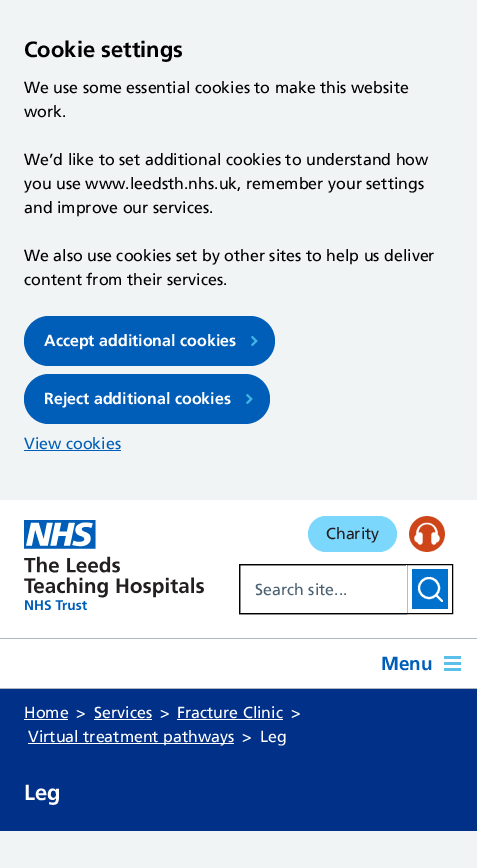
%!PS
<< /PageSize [477 868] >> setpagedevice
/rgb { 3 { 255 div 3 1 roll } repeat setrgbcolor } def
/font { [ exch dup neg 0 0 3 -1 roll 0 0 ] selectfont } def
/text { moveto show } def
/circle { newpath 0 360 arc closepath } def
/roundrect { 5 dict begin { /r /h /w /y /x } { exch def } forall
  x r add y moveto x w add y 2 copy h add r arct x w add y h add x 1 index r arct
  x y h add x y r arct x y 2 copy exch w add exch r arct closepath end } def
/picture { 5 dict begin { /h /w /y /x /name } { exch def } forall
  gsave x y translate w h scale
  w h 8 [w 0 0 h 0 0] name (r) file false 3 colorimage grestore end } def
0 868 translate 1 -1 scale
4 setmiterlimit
255 255 255 rgb
0 0 477 868 rectfill
240 244 245 rgb
0 0 477 500 rectfill
0 94 184 rgb
24 316 251 50 25 roundrect fill
(img_01.rgb) 251 336 7 10 picture
24 374 246 50 25 roundrect fill
(img_01.rgb) 246 394 7 10 picture
24 450 97 1 rectfill
(img_02.rgb) 24 520 180 90 picture
124 215 253 rgb
308 516 89 36 18 roundrect fill
(img_03.rgb) 409 516 36 36 picture
0 0 0 rgb
239.5 564.5 213 49 rectstroke
239.5 564.5 167 49 rectstroke
255 255 255 rgb
406 565 1 48 rectfill
0 114 206 rgb
412 569 36 40 rectfill
255 255 255 rgb
2.1 setlinewidth
429 588 10 circle stroke
1 setlinecap
436 595 moveto 6 6 rlineto stroke
174 183 189 rgb
0 638 477 1 rectfill
0 688 477 1 rectfill
90 192 233 rgb
444 656 17 3 rectfill
444 662 17 3 rectfill
444 668 17 3 rectfill
0 48 135 rgb
0 689 477 142 rectfill
255 255 255 rgb
24 719 44 1 rectfill
94 719 58 1 rectfill
177 719 106 1 rectfill
28 743 206 1 rectfill
240 244 245 rgb
0 831 477 37 rectfill
/Frutiger-Bold 22 font
0 0 0 rgb
(Cookie settings) 24 57 text
/Frutiger-Regular 16 font
(We use some essential cookies to make this website) 24 93 text
(work.) 24 117 text
(We’d like to set additional cookies to understand how) 24 165 text
(you use www.leedsth.nhs.uk, remember your settings) 24 189 text
(and improve our services.) 24 213 text
(We also use cookies set by other sites to help us deliver) 24 261 text
(content from their services.) 24 285 text
/Frutiger-Bold 16 font
255 255 255 rgb
(Accept additional cookies) 44 346 text
(Reject additional cookies) 44 404 text
/Frutiger-Regular 16 font
0 94 184 rgb
(View cookies) 24 449 text
35 31 32 rgb
(Charity) 326 539 text
76 98 114 rgb
(Search site...) 255 595 text
/Frutiger-Bold 19 font
0 94 184 rgb
(Menu) 381 670 text
/Frutiger-Regular 16 font
255 255 255 rgb
(Home) 24 718 text
(>) 76 718 text
(Services) 94 718 text
(>) 160 718 text
(Fracture Clinic) 177 718 text
(>) 291 718 text
(Virtual treatment pathways) 28 742 text
(>) 242 742 text
(Leg) 260 742 text
/Frutiger-Bold 22 font
(Leg) 24 800 text
showpage
